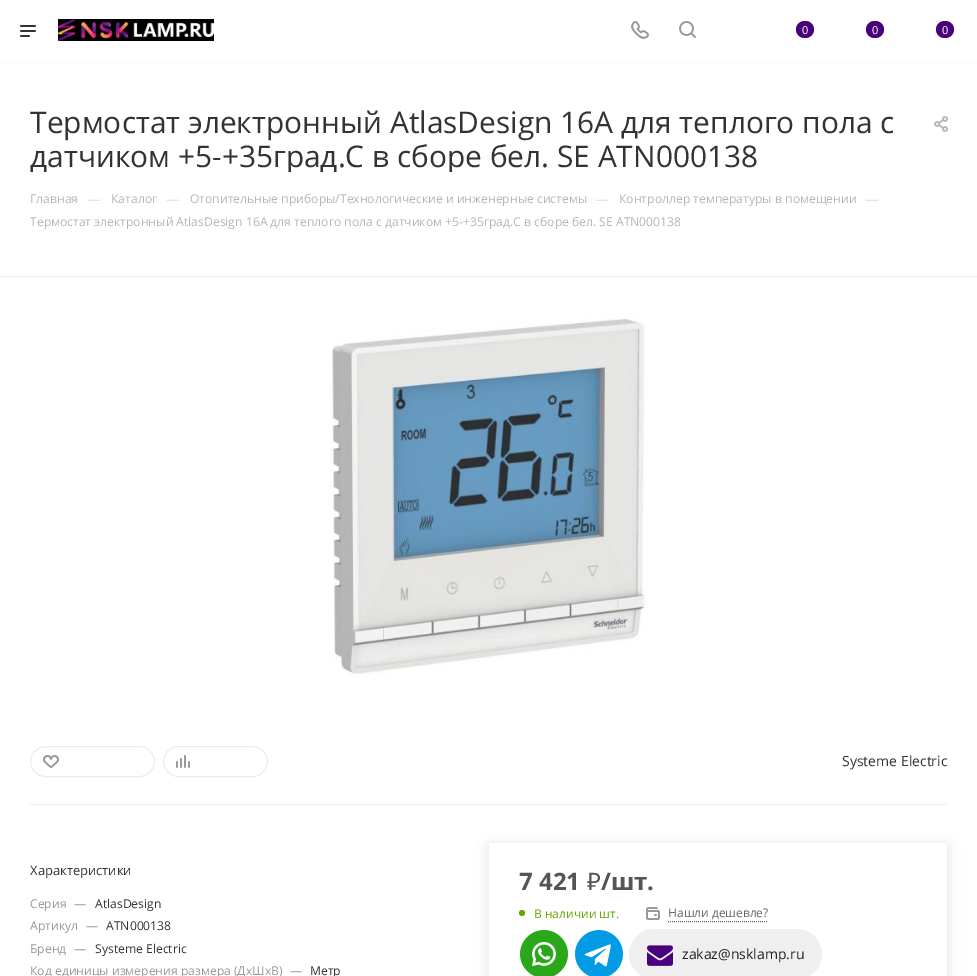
%!PS
<< /PageSize [977 976] /PageUsesTransparency true >> setpagedevice
/rgb { 3 { 255 div 3 1 roll } repeat setrgbcolor } def
/font { [ exch dup neg 0 0 3 -1 roll 0 0 ] selectfont } def
/text { moveto show } def
/alpha { dup .setfillconstantalpha .setstrokeconstantalpha } def
/circle { newpath 0 360 arc closepath } def
/roundrect { 5 dict begin { /r /h /w /y /x } { exch def } forall
  x r add y moveto x w add y 2 copy h add r arct x w add y h add x 1 index r arct
  x y h add x y r arct x y 2 copy exch w add exch r arct closepath end } def
/shadow { 12 dict begin { /a /b /q /h /w /y /x } { exch def } forall gsave /was 0 def
  9 -2 -9 { dup b mul 4 div /e exch def 1 sub .425 mul 2.718 exch exp 1 add a .99 .min exch div /now exch def
    1 1 now sub 1 was sub div sub alpha /was now def
    w h .min e 2 mul add 0 gt { x e sub y e sub w e 2 mul add h e 2 mul add
      q e add b .6 mul add w h .min 2 div e add .min 0 .max roundrect fill } if } for grestore end } def
/picture { 5 dict begin { /h /w /y /x /name } { exch def } forall
  gsave x y translate w h scale
  w h 8 [w 0 0 h 0 0] name (r) file false 3 colorimage grestore end } def
0 .pushpdf14devicefilter
0 976 translate 1 -1 scale
4 setmiterlimit
255 255 255 rgb
0 0 977 976 rectfill
248 248 248 rgb
0 62 977 1 rectfill
(img_01.rgb) 20 25 16 12 picture
(img_02.rgb) 58 19 156 22 picture
(img_03.rgb) 631 21 18 18 picture
(img_04.rgb) 679 21 17 17 picture
74 1 125 rgb
796 21 18 17 8.5 roundrect fill
866 21 18 17 8.5 roundrect fill
936 21 18 17 8.5 roundrect fill
(img_05.rgb) 934 116 14 16 picture
236 236 236 rgb
0 276 977 1 rectfill
(img_06.rgb) 330 318 318 358 picture
30 804 917 1 rectfill
30.5 746.5 124 30 15 roundrect stroke
(img_07.rgb) 43 755 16 13 picture
163.5 746.5 104 30 15 roundrect stroke
(img_08.rgb) 176 755 14 13 picture
gsave
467 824 moveto 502 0 rlineto 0 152 rlineto -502 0 rlineto closepath 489 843 moveto 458 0 rlineto 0 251 rlineto -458 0 rlineto closepath eoclip newpath
0 0 0 rgb
489 846 458 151 0 7 0.12 shadow
grestore
95 168 0 rgb
522 913 3 circle fill
(img_09.rgb) 646 907 14 13 picture
102 102 102 rgb
[1 1] 0 setdash
668 921.5 moveto 100 0 rlineto stroke
(img_10.rgb) 520 930 48 46 picture
(img_11.rgb) 575 930 48 46 picture
239 239 239 rgb
629 929 193 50 25 roundrect fill
(img_12.rgb) 647 945 26 21 picture
/OpenSans-Regular 11 font
255 255 255 rgb
(0) 802 34 text
(0) 872 34 text
(0) 942 34 text
/OpenSans-Regular 29.85 font
51 51 51 rgb
(Термостат электронный AtlasDesign 16А для теплого пола с) 30 133 text
gsave
30 105 871 67 rectclip
(датчиком +5-+35град.C в сборе бел. SE ATN000138) 30 167 text
grestore
/OpenSans-Regular 12.15 font
182 181 181 rgb
(Главная) 30 203 text
/OpenSans-Regular 14 font
221 221 221 rgb
(—) 87 204 text
/OpenSans-Regular 12.15 font
182 181 181 rgb
(Каталог) 111 203 text
/OpenSans-Regular 14 font
221 221 221 rgb
(—) 166 204 text
/OpenSans-Regular 12.15 font
182 181 181 rgb
(Отопительные приборы/Технологические и инженерные системы) 190 203 text
/OpenSans-Regular 14 font
221 221 221 rgb
(—) 595 204 text
/OpenSans-Regular 12.15 font
182 181 181 rgb
(Контроллер температуры в помещении) 619 203 text
/OpenSans-Regular 14 font
221 221 221 rgb
(—) 865 204 text
/OpenSans-Regular 12.15 font
182 181 181 rgb
(Термостат электронный AtlasDesign 16А для теплого пола с датчиком +5-+35град.C в сборе бел. SE ATN000138) 30 226 text
/OpenSans-Regular 14 font
51 51 51 rgb
(Systeme Electric) 842 766 text
/OpenSans-Regular 13 font
(Характеристики) 30 875 text
/OpenSans-Regular 12.15 font
153 153 153 rgb
(Серия) 30 908 text
(—) 74 908 text
51 51 51 rgb
(AtlasDesign) 95 908 text
153 153 153 rgb
(Артикул) 30 930 text
(—) 86 930 text
51 51 51 rgb
(ATN000138) 106 930 text
153 153 153 rgb
(Бренд) 30 953 text
(—) 74 953 text
51 51 51 rgb
(Systeme Electric) 95 953 text
153 153 153 rgb
(Код единицы измерения размера \(ДхШхВ\)) 30 975 text
(—) 290 975 text
51 51 51 rgb
(Метр) 310 975 text
/OpenSans-Bold 24 font
85 85 85 rgb
(7 421) 519 890 text
/NotoSans-Regular 24 font
(₽) 587 890 text
/OpenSans-Bold 24 font
(/шт.) 601 890 text
/OpenSans-Regular 12 font
95 168 0 rgb
(В наличии шт.) 534 918 text
102 102 102 rgb
(Нашли дешевле?) 668 917 text
/OpenSans-Regular 14 font
34 34 34 rgb
(zakaz@nsklamp.ru) 682 959 text
.poppdf14devicefilter showpage
